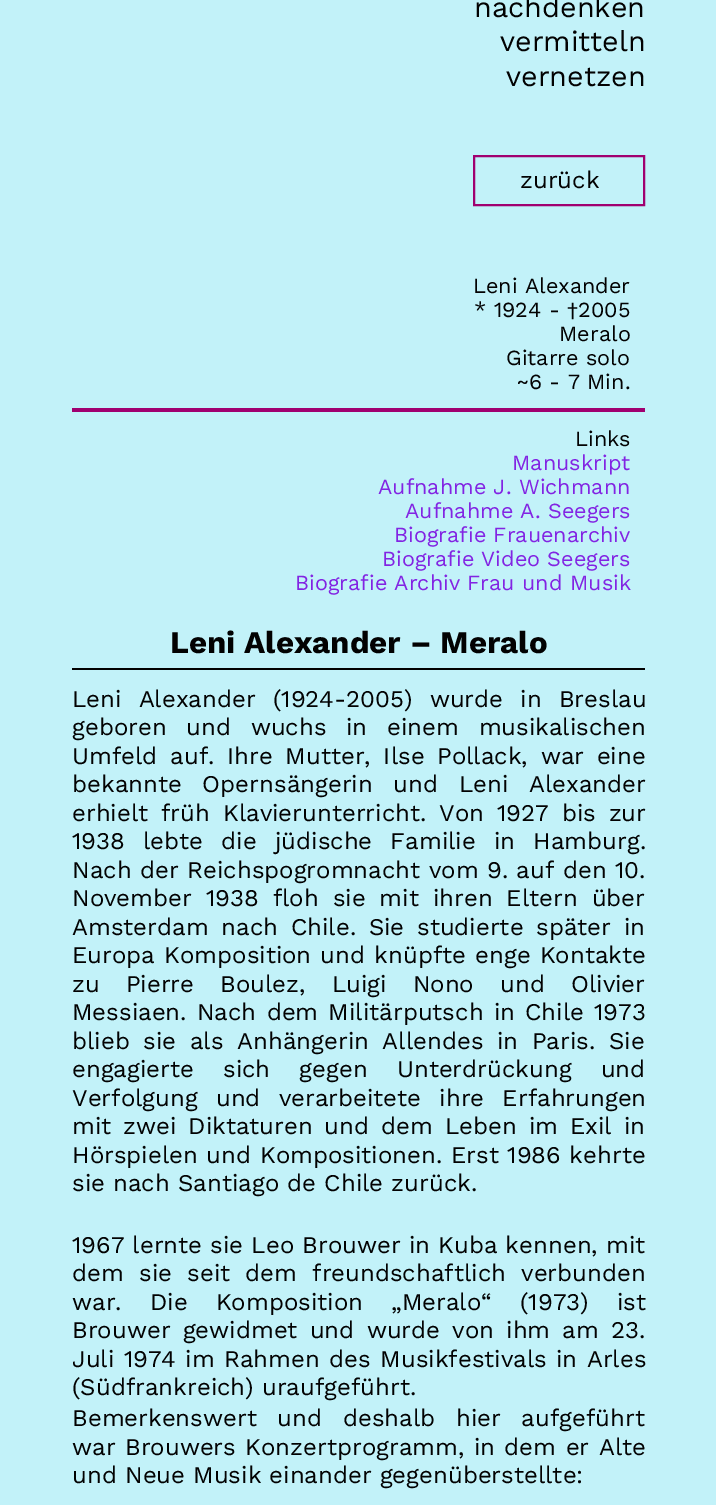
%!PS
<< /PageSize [716 1505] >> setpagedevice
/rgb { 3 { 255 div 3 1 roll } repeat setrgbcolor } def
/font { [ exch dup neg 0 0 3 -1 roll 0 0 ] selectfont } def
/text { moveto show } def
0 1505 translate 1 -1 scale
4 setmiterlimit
194 242 249 rgb
0 0 716 1505 rectfill
160 0 112 rgb
2 setlinewidth
474 156 170 49 rectstroke
72 408 573 4 rectfill
2 2 2 rgb
72 668 573 2 rectfill
/WorkSans-Regular 28.75 font
(nachdenken) 474 17 text
(vermitteln) 500 51 text
(vernetzen) 506 86 text
/WorkSans-Regular 24 font
(zurück) 520 188 text
/WorkSans-Regular 21.6 font
(Leni Alexander) 473 293 text
(* 1924 - †2005) 474 317 text
(Meralo) 559 341 text
(Gitarre solo) 506 365 text
(~6 - 7 Min.) 517 389 text
(Links) 575 446 text
130 36 227 rgb
(Manuskript) 512 470 text
(Aufnahme J. Wichmann) 378 494 text
(Aufnahme A. Seegers) 405 518 text
(Biografie Frauenarchiv) 394 542 text
(Biografie Video Seegers) 382 566 text
(Biografie Archiv Frau und Musik) 295 590 text
/WorkSans-Bold 31.25 font
2 2 2 rgb
(Leni Alexander – Meralo) 170 653 text
/WorkSans-Regular 24 font
72 707 moveto 9 0 32 (Leni Alexander \(1924-2005\) wurde in Breslau) widthshow
72 735 moveto 11.5 0 32 (geboren und wuchs in einem musikalischen) widthshow
72 764 moveto 4.5 0 32 (Umfeld auf. Ihre Mutter, Ilse Pollack, war eine) widthshow
72 792 moveto 12.5 0 32 (bekannte Opernsängerin und Leni Alexander) widthshow
72 821 moveto 4.75 0 32 (erhielt früh Klavierunterricht. Von 1927 bis zur) widthshow
72 849 moveto 10 0 32 (1938 lebte die jüdische Familie in Hamburg.) widthshow
72 878 moveto 0.25 0 32 (Nach der Reichspogromnacht vom 9. auf den 10.) widthshow
72 906 moveto 5.75 0 32 (November 1938 floh sie mit ihren Eltern über) widthshow
72 935 moveto 4.5 0 32 (Amsterdam nach Chile. Sie studierte später in) widthshow
72 963 moveto 1 0 32 (Europa Komposition und knüpfte enge Kontakte) widthshow
72 992 moveto 18 0 32 (zu Pierre Boulez, Luigi Nono und Olivier) widthshow
72 1020 moveto 2 0 32 (Messiaen. Nach dem Militärputsch in Chile 1973) widthshow
72 1049 moveto 5.5 0 32 (blieb sie als Anhängerin Allendes in Paris. Sie) widthshow
72 1077 moveto 21 0 32 (engagierte sich gegen Unterdrückung und) widthshow
72 1106 moveto 10 0 32 (Verfolgung und verarbeitete ihre Erfahrungen) widthshow
72 1134 moveto 3.75 0 32 (mit zwei Diktaturen und dem Leben im Exil in) widthshow
72 1163 moveto 0.5 0 32 (Hörspielen und Kompositionen. Erst 1986 kehrte) widthshow
(sie nach Santiago de Chile zurück.) 72 1191 text
(1967 lernte sie Leo Brouwer in Kuba kennen, mit) 72 1253 text
72 1281 moveto 7 0 32 (dem sie seit dem freundschaftlich verbunden) widthshow
72 1310 moveto 20 0 32 (war. Die Komposition „Meralo“ \(1973\) ist) widthshow
72 1338 moveto 4 0 32 (Brouwer gewidmet und wurde von ihm am 23.) widthshow
72 1367 moveto 1.25 0 32 (Juli 1974 im Rahmen des Musikfestivals in Arles) widthshow
(\(Südfrankreich\) uraufgeführt.) 72 1395 text
72 1426 moveto 12.5 0 32 (Bemerkenswert und deshalb hier aufgeführt) widthshow
72 1455 moveto 1.25 0 32 (war Brouwers Konzertprogramm, in dem er Alte) widthshow
(und Neue Musik einander gegenüberstellte:) 72 1483 text
showpage
